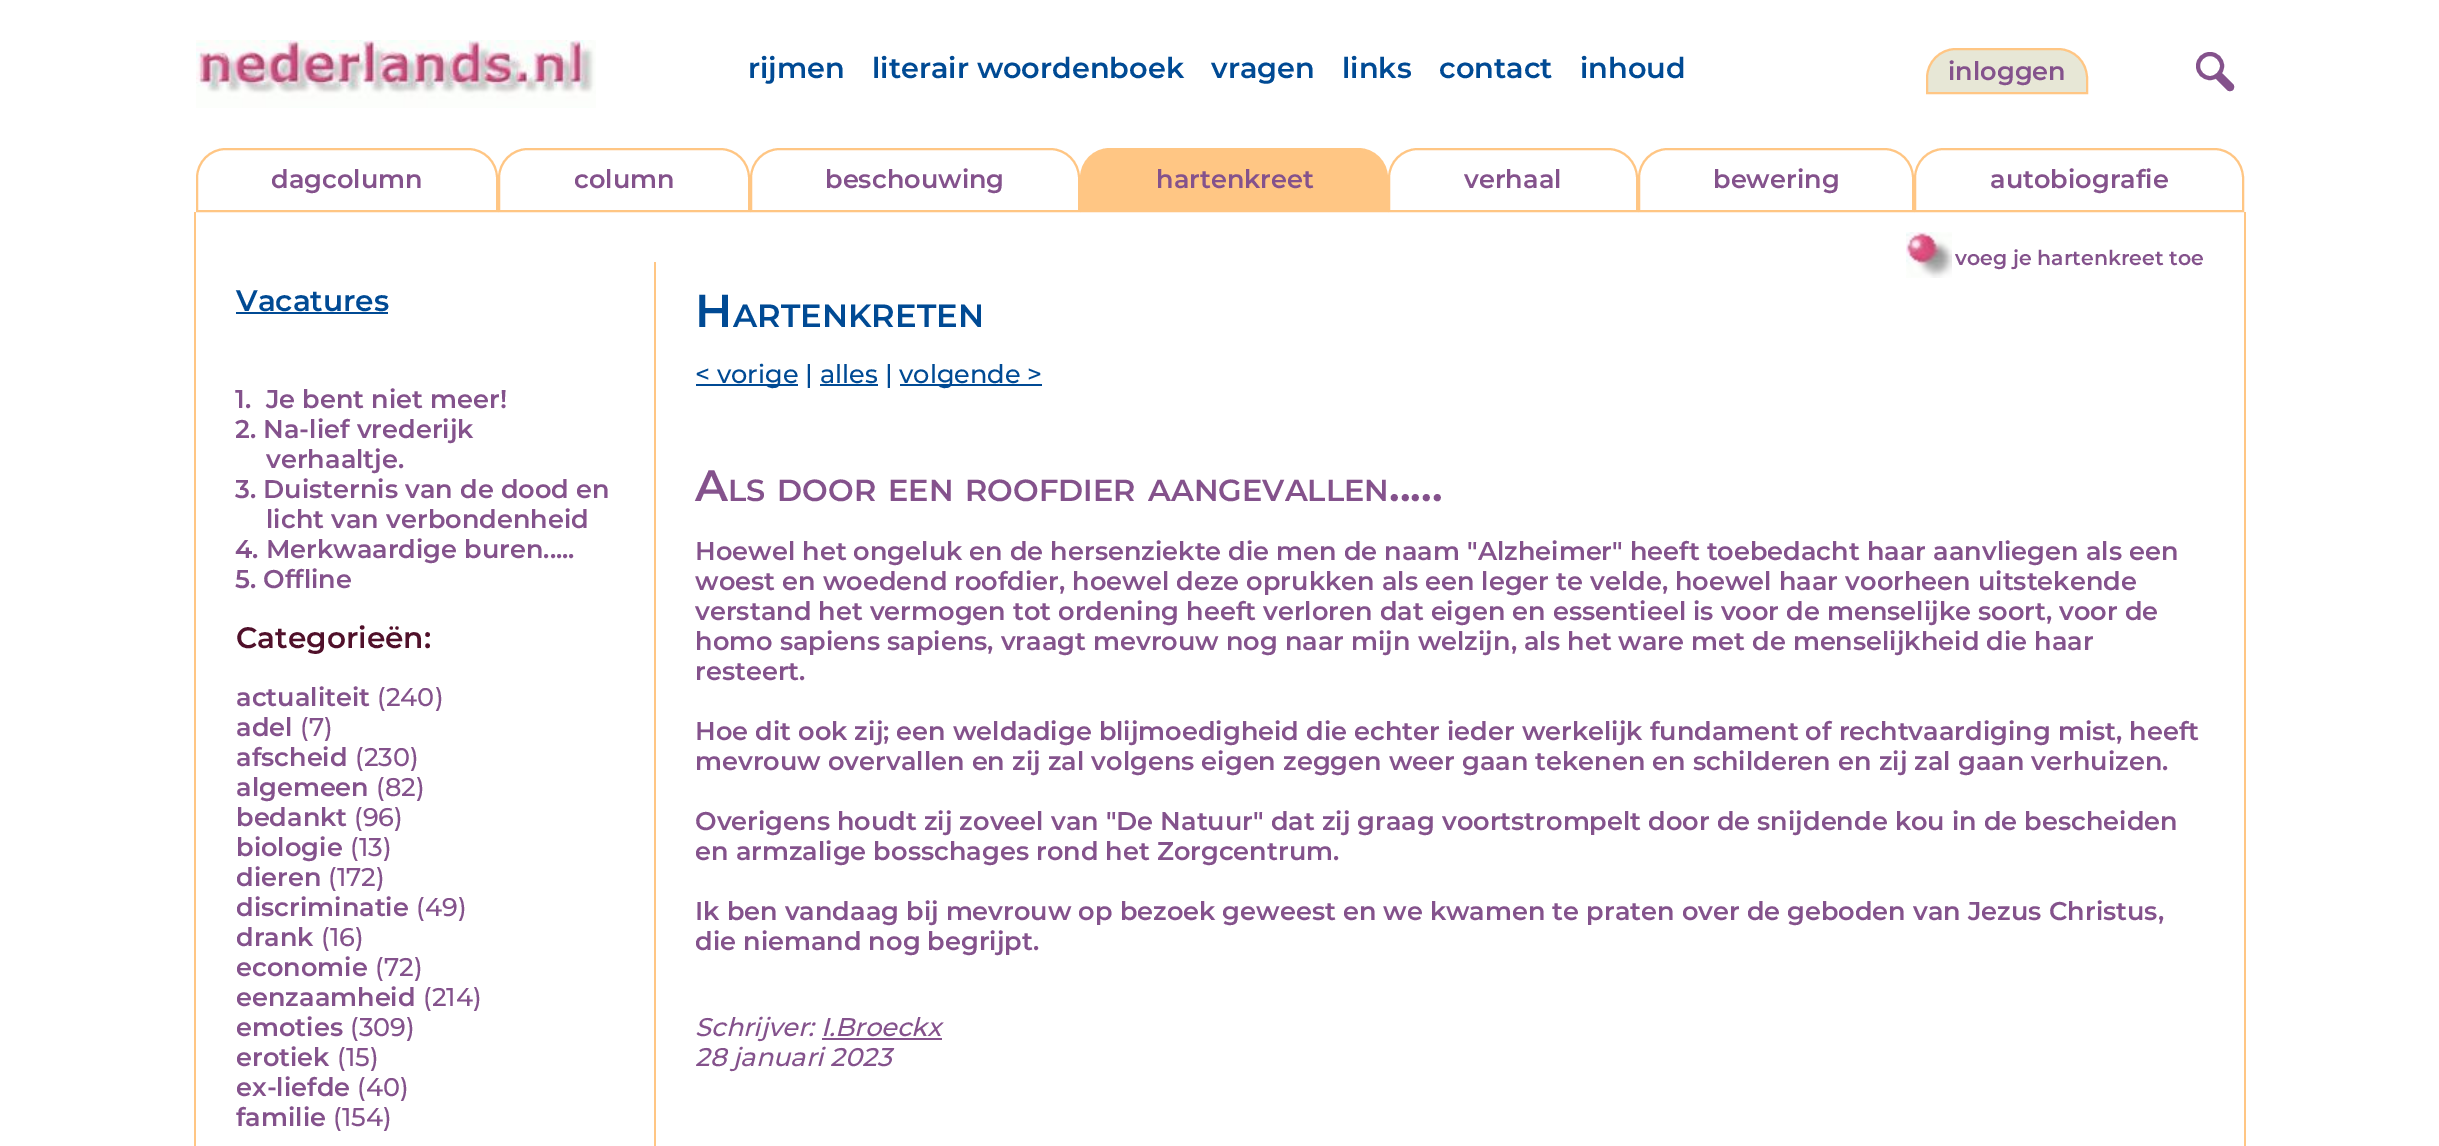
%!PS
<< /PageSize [2439 1146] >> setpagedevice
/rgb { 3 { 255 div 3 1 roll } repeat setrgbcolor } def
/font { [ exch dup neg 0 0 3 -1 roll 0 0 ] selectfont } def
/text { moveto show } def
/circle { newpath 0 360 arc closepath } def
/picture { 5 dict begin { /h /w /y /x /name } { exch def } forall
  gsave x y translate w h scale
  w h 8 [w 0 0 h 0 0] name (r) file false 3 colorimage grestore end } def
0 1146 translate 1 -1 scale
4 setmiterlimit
255 255 255 rgb
0 0 2439 1146 rectfill
(img_01.rgb) 196 40 400 68 picture
231 231 214 rgb
1956 49 moveto 102 0 rlineto 16 0 29 13 29 29 rcurveto 0 15 rlineto -160 0 rlineto 0 -15 rlineto 0 -16 13 -29 29 -29 rcurveto closepath gsave fill grestore
255 198 132 rgb
2 setlinewidth
stroke
132 82 140 rgb
4 setlinewidth
2210 66 12 circle stroke
2223 74 moveto 10 10 rlineto 1.5 1.5 1.5 4 0 6 rcurveto -2 1.5 -4.5 1.5 -6 0 rcurveto -10 -10 rlineto -1.5 -1.5 -1.5 -4 0 -6 rcurveto 2 -1.5 4.5 -1.5 6 0 rcurveto closepath fill
255 198 132 rgb
2 setlinewidth
226 149 moveto 242 0 rlineto 16 0 29 13 29 29 rcurveto 0 33 rlineto -300 0 rlineto 0 -33 rlineto 0 -16 13 -29 29 -29 rcurveto closepath stroke
528 149 moveto 192 0 rlineto 16 0 29 13 29 29 rcurveto 0 33 rlineto -250 0 rlineto 0 -33 rlineto 0 -16 13 -29 29 -29 rcurveto closepath stroke
780 149 moveto 270 0 rlineto 16 0 29 13 29 29 rcurveto 0 33 rlineto -328 0 rlineto 0 -33 rlineto 0 -16 13 -29 29 -29 rcurveto closepath stroke
1110 149 moveto 248 0 rlineto 16 0 29 13 29 29 rcurveto 0 33 rlineto -306 0 rlineto 0 -33 rlineto 0 -16 13 -29 29 -29 rcurveto closepath gsave fill grestore
stroke
1418 149 moveto 190 0 rlineto 16 0 29 13 29 29 rcurveto 0 33 rlineto -248 0 rlineto 0 -33 rlineto 0 -16 13 -29 29 -29 rcurveto closepath stroke
1668 149 moveto 216 0 rlineto 16 0 29 13 29 29 rcurveto 0 33 rlineto -274 0 rlineto 0 -33 rlineto 0 -16 13 -29 29 -29 rcurveto closepath stroke
1944 149 moveto 270 0 rlineto 16 0 29 13 29 29 rcurveto 0 33 rlineto -328 0 rlineto 0 -33 rlineto 0 -16 13 -29 29 -29 rcurveto closepath stroke
2244 212 2 934 rectfill
194 212 2 934 rectfill
(img_02.rgb) 1906 232 46 46 picture
654 262 2 884 rectfill
0 74 148 rgb
236 312 152 2 rectfill
696 384 102 2 rectfill
900 384 142 2 rectfill
820 384 58 2 rectfill
132 82 140 rgb
822 1038 120 2 rectfill
/Montserrat-Thin 28.75 font
0 74 148 rgb
(rijmen) 748 78 text
(literair woordenboek) 872 78 text
(vragen) 1211 78 text
(links) 1342 78 text
(contact) 1439 78 text
(inhoud) 1580 78 text
/Montserrat-Thin 25.6 font
132 82 140 rgb
(inloggen) 1948 80 text
(dagcolumn) 271 188 text
(column) 574 188 text
(beschouwing) 825 188 text
(hartenkreet) 1156 188 text
(verhaal) 1464 188 text
(bewering) 1713 188 text
(autobiografie) 1990 188 text
/Montserrat-Thin 20.5 font
(voeg je hartenkreet toe) 1955 265 text
/Montserrat-Thin 29.5 font
0 74 148 rgb
(Vacatures) 236 311 text
/Montserrat-Thin 25.6 font
132 82 140 rgb
(1.) 235 408 text
(Je bent niet meer!) 266 408 text
(2. Na-lief vrederijk) 235 438 text
(verhaaltje.) 266 468 text
(3. Duisternis van de dood en) 235 498 text
(licht van verbondenheid) 266 528 text
(4. Merkwaardige buren.....) 235 558 text
(5. Offline) 235 588 text
/Montserrat-Thin 29.5 font
80 16 42 rgb
(Categorieën:) 236 648 text
/Montserrat-Thin 25.6 font
132 82 140 rgb
(actualiteit) 236 706 text
/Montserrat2-Thin 25.6 font
(\(240\)) 377 706 text
/Montserrat-Thin 25.6 font
(adel) 236 736 text
/Montserrat2-Thin 25.6 font
(\(7\)) 300 736 text
/Montserrat-Thin 25.6 font
(afscheid) 236 766 text
/Montserrat2-Thin 25.6 font
(\(230\)) 355 766 text
/Montserrat-Thin 25.6 font
(algemeen) 236 796 text
/Montserrat2-Thin 25.6 font
(\(82\)) 376 796 text
/Montserrat-Thin 25.6 font
(bedankt) 236 826 text
/Montserrat2-Thin 25.6 font
(\(96\)) 354 826 text
/Montserrat-Thin 25.6 font
(biologie) 236 856 text
/Montserrat2-Thin 25.6 font
(\(13\)) 350 856 text
/Montserrat-Thin 25.6 font
(dieren) 236 886 text
/Montserrat2-Thin 25.6 font
(\(172\)) 328 886 text
/Montserrat-Thin 25.6 font
(discriminatie) 236 916 text
/Montserrat2-Thin 25.6 font
(\(49\)) 416 916 text
/Montserrat-Thin 25.6 font
(drank) 236 946 text
/Montserrat2-Thin 25.6 font
(\(16\)) 321 946 text
/Montserrat-Thin 25.6 font
(economie) 236 976 text
/Montserrat2-Thin 25.6 font
(\(72\)) 375 976 text
/Montserrat-Thin 25.6 font
(eenzaamheid) 236 1006 text
/Montserrat2-Thin 25.6 font
(\(214\)) 423 1006 text
/Montserrat-Thin 25.6 font
(emoties) 236 1036 text
/Montserrat2-Thin 25.6 font
(\(309\)) 350 1036 text
/Montserrat-Thin 25.6 font
(erotiek) 236 1066 text
/Montserrat2-Thin 25.6 font
(\(15\)) 337 1066 text
/Montserrat-Thin 25.6 font
(ex-liefde) 236 1096 text
/Montserrat2-Thin 25.6 font
(\(40\)) 357 1096 text
/Montserrat-Thin 25.6 font
(familie) 236 1126 text
/Montserrat2-Thin 25.6 font
(\(154\)) 333 1126 text
/Montserrat-Thin 46 font
0 74 148 rgb
(H) 695 327 text
/Montserrat-Thin 32.25 font
(ARTENKRETEN) 733 327 text
/Montserrat2-Thin 25.6 font
(< vorige | alles |) 695 383 text
(volgende >) 899 383 text
/Montserrat-Thin 44 font
132 82 140 rgb
(A) 695 501 text
/Montserrat-Thin 30.5 font
(LS) 728 501 text
(DOOR) 777 501 text
(EEN) 888 501 text
(ROOFDIER) 965 501 text
(AANGEVALLEN) 1148 501 text
/Montserrat-Thin 44 font
(.....) 1389 501 text
/Montserrat-Thin 25.6 font
(Hoewel het ongeluk en de hersenziekte die men de naam "Alzheimer" heeft toebedacht haar aanvliegen als een) 695 560 text
(woest en woedend roofdier, hoewel deze oprukken als een leger te velde, hoewel haar voorheen uitstekende) 695 590 text
(verstand het vermogen tot ordening heeft verloren dat eigen en essentieel is voor de menselijke soort, voor de) 695 620 text
(homo sapiens sapiens, vraagt mevrouw nog naar mijn welzijn, als het ware met de menselijkheid die haar) 695 650 text
(resteert.) 695 680 text
(Hoe dit ook zij; een weldadige blijmoedigheid die echter ieder werkelijk fundament of rechtvaardiging mist, heeft) 695 740 text
(mevrouw overvallen en zij zal volgens eigen zeggen weer gaan tekenen en schilderen en zij zal gaan verhuizen.) 695 770 text
(Overigens houdt zij zoveel van "De Natuur" dat zij graag voortstrompelt door de snijdende kou in de bescheiden) 695 830 text
(en armzalige bosschages rond het Zorgcentrum.) 695 860 text
(Ik ben vandaag bij mevrouw op bezoek geweest en we kwamen te praten over de geboden van Jezus Christus,) 695 920 text
(die niemand nog begrijpt.) 695 950 text
/Montserrat-ThinItalic 25.6 font
(Schrijver: I.Broeckx) 695 1036 text
(28 januari 2023) 695 1066 text
showpage
